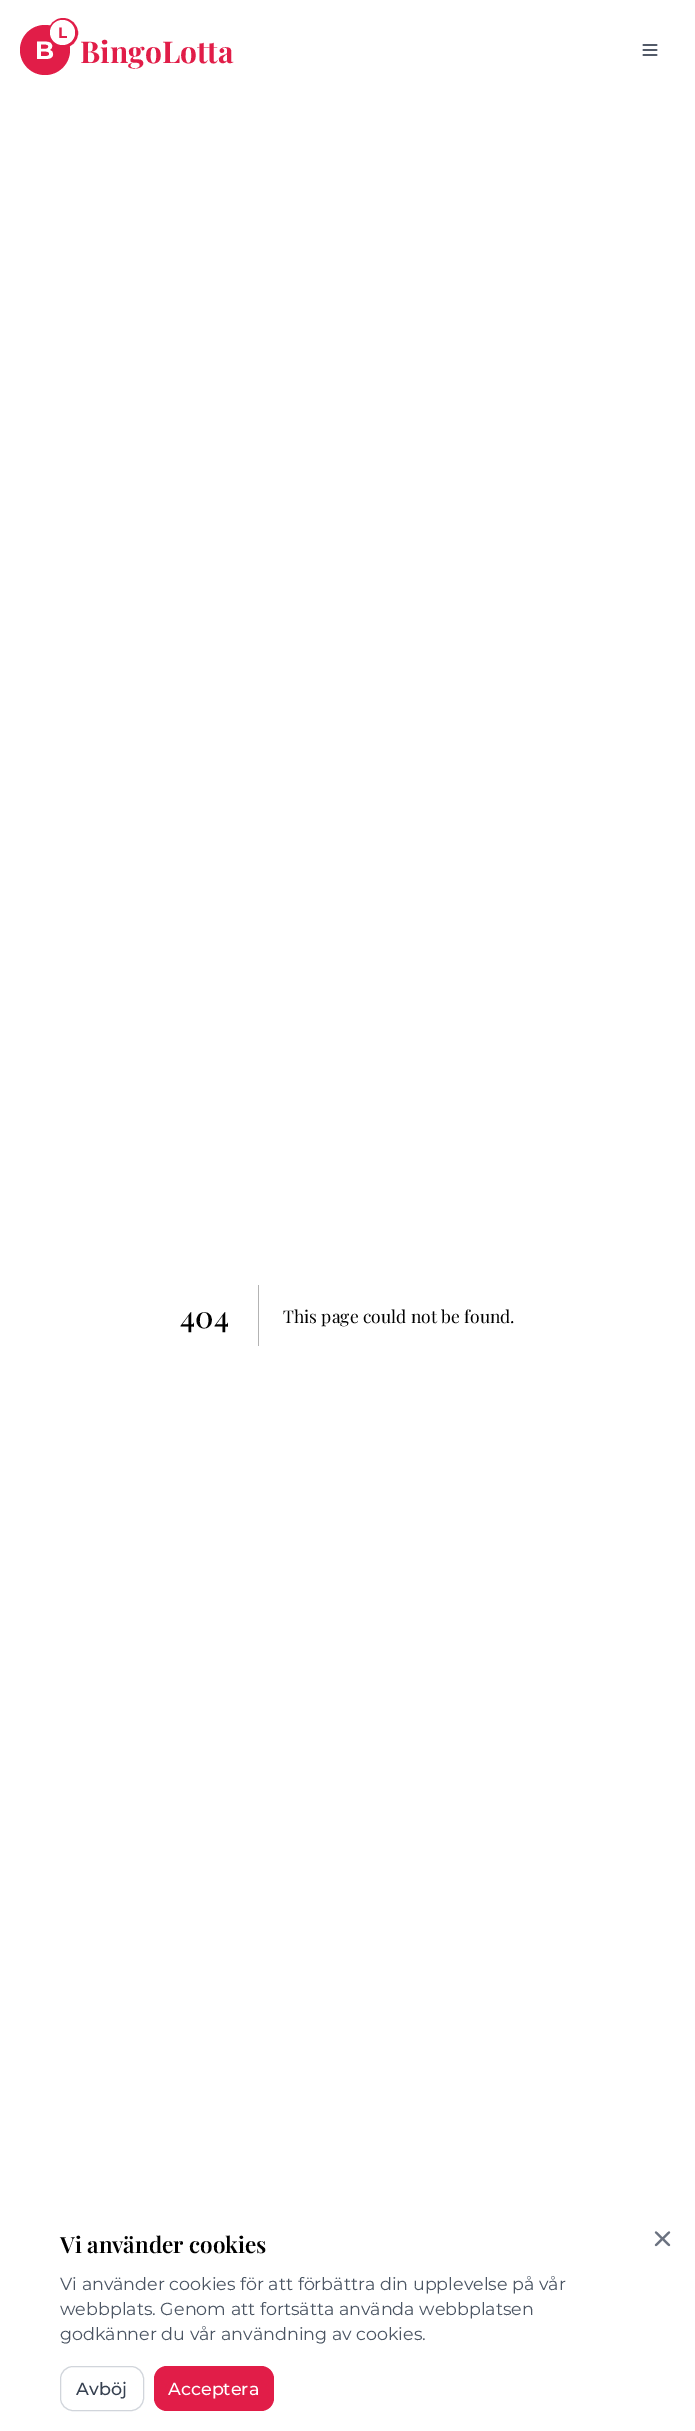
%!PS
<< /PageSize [695 2431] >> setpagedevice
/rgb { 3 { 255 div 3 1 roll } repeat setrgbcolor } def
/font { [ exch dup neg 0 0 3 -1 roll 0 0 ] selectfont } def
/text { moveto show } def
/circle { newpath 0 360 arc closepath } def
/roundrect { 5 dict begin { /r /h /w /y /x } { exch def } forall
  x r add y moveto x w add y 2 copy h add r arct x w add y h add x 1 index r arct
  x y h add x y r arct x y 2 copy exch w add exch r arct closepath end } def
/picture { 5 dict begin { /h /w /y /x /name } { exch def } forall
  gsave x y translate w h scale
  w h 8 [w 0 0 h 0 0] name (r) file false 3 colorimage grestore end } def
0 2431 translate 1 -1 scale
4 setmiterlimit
255 255 255 rgb
0 0 695 2431 rectfill
225 29 72 rgb
45 50 25 circle fill
(img_01.rgb) 642 44 16 12 picture
179 179 179 rgb
258 1285 1 61 rectfill
107 114 128 rgb
2.1 setlinewidth
1 setlinecap
1 setlinejoin
669 2232.5 moveto -13 12.5 rlineto 656 2232.5 moveto 13 12.5 rlineto stroke
209 213 219 rgb
1 setlinewidth
0 setlinecap
0 setlinejoin
60.5 2366.5 83 44 12.5 roundrect stroke
225 29 72 rgb
154 2366 120 45 13 roundrect fill
/Montserrat-Bold 25 font
255 255 255 rgb
(B) 35 59 text
225 29 72 rgb
3 setlinewidth
63 33 13.5 circle stroke
255 255 255 rgb
62.5 32.5 12.5 circle fill
/Montserrat-Bold 15 font
225 29 72 rgb
(L) 58 38 text
/PlayfairDisplay-Bold 30 font
(BingoLotta) 80 63 text
/PlayfairDisplay-Medium 30 font
0 0 0 rgb
(404) 180 1328 text
/PlayfairDisplay-Regular 17.5 font
(This page could not be found.) 283 1323 text
/PlayfairDisplay-SemiBold 22.5 font
(Vi använder cookies) 60 2253 text
/Montserrat-Regular 17.5 font
75 85 99 rgb
(Vi använder cookies för att förbättra din upplevelse på vår) 60 2290 text
(webbplats. Genom att fortsätta använda webbplatsen) 60 2315 text
(godkänner du vår användning av cookies.) 60 2340 text
/Montserrat-Medium 17.5 font
55 65 81 rgb
(Avböj) 76 2395 text
255 255 255 rgb
(Acceptera) 168 2395 text
showpage
